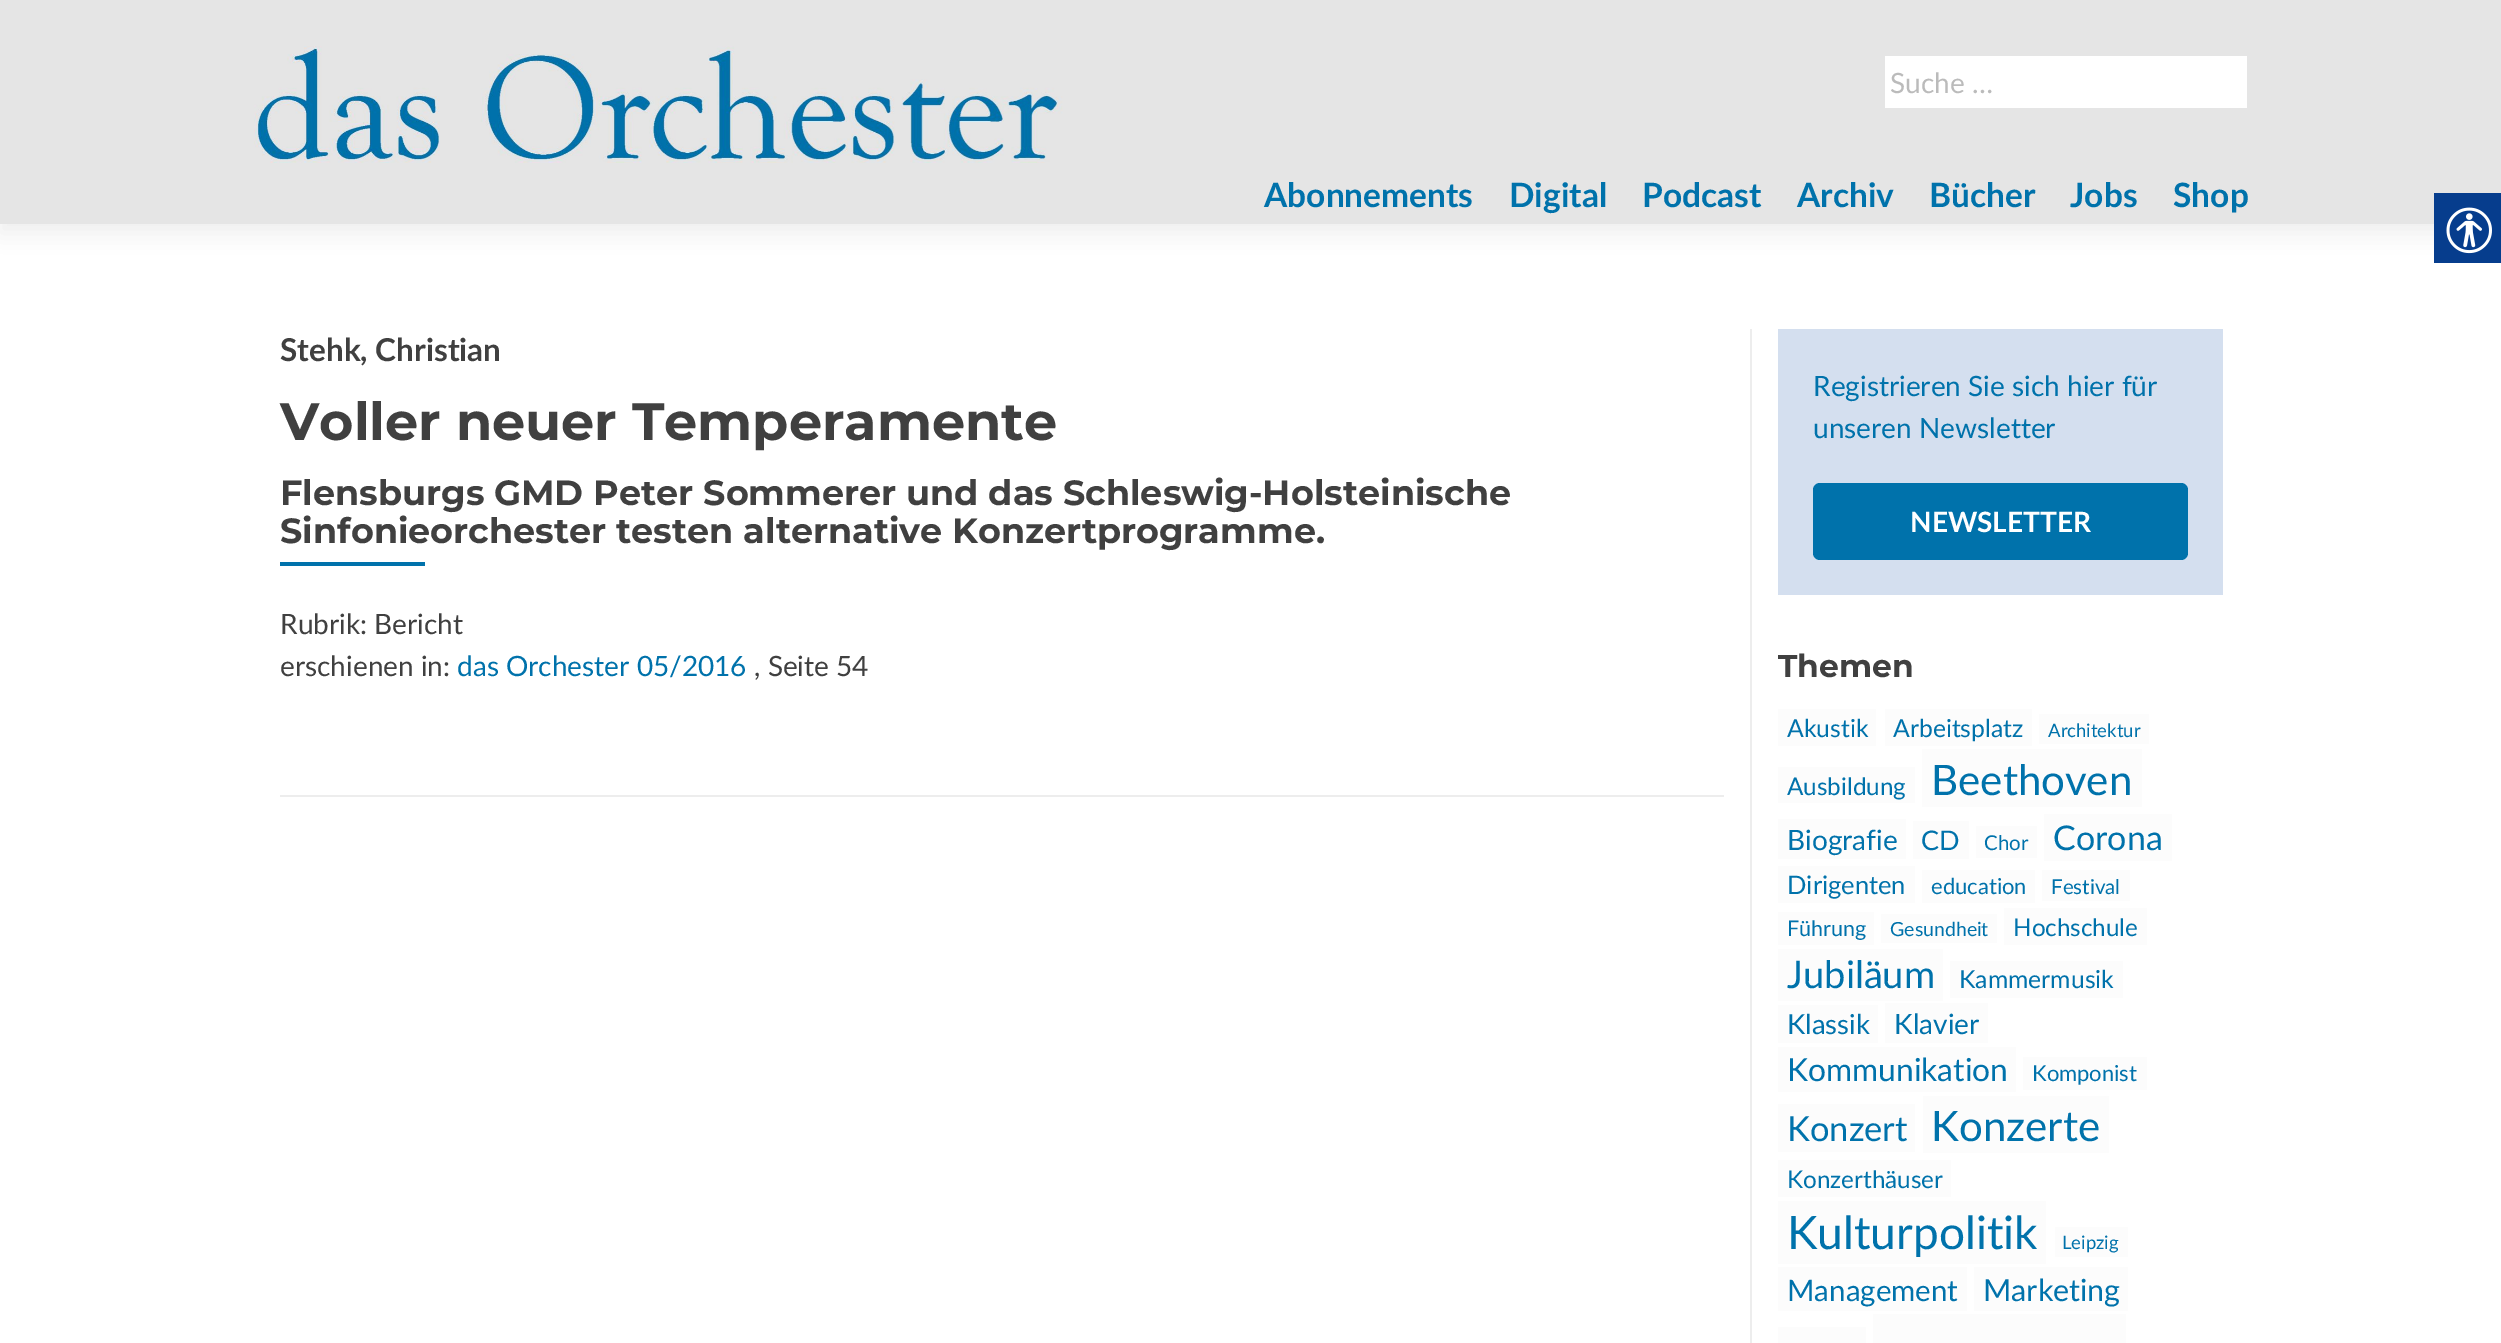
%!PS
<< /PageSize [2501 1343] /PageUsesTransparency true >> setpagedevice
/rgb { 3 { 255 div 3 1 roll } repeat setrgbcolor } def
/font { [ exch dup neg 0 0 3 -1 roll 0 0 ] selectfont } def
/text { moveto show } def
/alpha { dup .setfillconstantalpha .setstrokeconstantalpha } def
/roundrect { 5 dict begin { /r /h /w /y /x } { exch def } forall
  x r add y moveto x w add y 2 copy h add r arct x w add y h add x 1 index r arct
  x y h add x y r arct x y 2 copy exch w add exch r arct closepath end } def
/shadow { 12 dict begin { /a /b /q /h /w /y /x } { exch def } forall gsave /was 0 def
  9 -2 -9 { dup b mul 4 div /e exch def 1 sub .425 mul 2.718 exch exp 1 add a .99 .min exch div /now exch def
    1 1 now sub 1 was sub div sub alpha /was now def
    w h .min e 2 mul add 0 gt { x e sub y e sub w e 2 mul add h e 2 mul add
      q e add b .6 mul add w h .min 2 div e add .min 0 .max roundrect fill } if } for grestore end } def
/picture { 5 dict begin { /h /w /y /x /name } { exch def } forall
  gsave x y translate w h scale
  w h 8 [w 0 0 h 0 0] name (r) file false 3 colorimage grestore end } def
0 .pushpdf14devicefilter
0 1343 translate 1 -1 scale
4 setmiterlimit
255 255 255 rgb
0 0 2501 1343 rectfill
50 50 50 rgb
0 9 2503 224 0 9.5 0.08 shadow
229 229 229 rgb
0 0 2501 224 rectfill
(img_01.rgb) 254 46 809 117 picture
255 255 255 rgb
1885 56 362 52 rectfill
237 237 237 rgb
280 795 1444 2 rectfill
0 114 171 rgb
280 562 145 4 rectfill
237 237 237 rgb
1750 329 2 1014 rectfill
212 223 239 rgb
1778 329 445 266 rectfill
0 114 171 rgb
1813 483 375 77 7 roundrect fill
252 252 252 rgb
1778 709 98 37 rectfill
1885 709 147 37 rectfill
2039 714 110 30 rectfill
1778 767 137 36 rectfill
1922 749 220 58 rectfill
1778 819 128 40 rectfill
1913 821 56 38 rectfill
1976 826 61 32 rectfill
2044 814 128 47 rectfill
1778 866 137 37 rectfill
1922 870 113 33 rectfill
2042 870 88 31 rectfill
1778 912 96 33 rectfill
1881 914 116 29 rectfill
2004 908 143 37 rectfill
1778 949 165 52 rectfill
1950 961 173 37 rectfill
1778 1005 100 38 rectfill
1885 1003 103 40 rectfill
1778 1047 238 45 rectfill
2023 1057 124 33 rectfill
1778 1104 137 48 rectfill
1923 1096 186 57 rectfill
1778 1160 173 37 rectfill
1778 1201 268 63 rectfill
2055 1227 73 30 rectfill
1778 1267 189 44 rectfill
1974 1267 154 44 rectfill
1778 1327 88 16 rectfill
1873 1314 253 29 rectfill
6 61 141 rgb
2434 193 67 70 rectfill
(img_02.rgb) 2446 207 46 47 picture
/Lato-Regular 28 font
187 187 187 rgb
(Suche …) 1890 93 text
/Lato-Bold 33.5 font
0 114 171 rgb
(Abonnements) 1264 207 text
(Digital) 1509 207 text
(Podcast) 1642 207 text
(Archiv) 1797 207 text
(Bücher) 1929 207 text
(Jobs) 2070 207 text
(Shop) 2173 207 text
/Lato-Bold 31.5 font
64 64 64 rgb
(Stehk, Christian) 280 361 text
/Montserrat-Bold 52.5 font
(Voller neuer Temperamente) 280 440 text
/Montserrat-Bold 35 font
(Flensburgs GMD Peter Sommerer und das Schleswig-Holsteinische) 280 505 text
(Sinfonieorchester testen alternative Konzertprogramme.) 280 543 text
/Lato-Regular 28 font
(Rubrik: Bericht) 280 634 text
(erschienen in:) 280 676 text
0 114 171 rgb
(das Orchester 05/2016) 457 676 text
64 64 64 rgb
(, Seite 54) 754 676 text
0 114 171 rgb
(Registrieren Sie sich hier für) 1813 396 text
(unseren Newsletter) 1813 438 text
/Lato-Bold 28 font
255 255 255 rgb
(NEWSLETTER) 1910 532 text
/Montserrat-Bold 31.5 font
64 64 64 rgb
(Themen) 1778 677 text
/Lato-Regular 24.75 font
0 114 171 rgb
(Akustik) 1787 737 text
(Arbeitsplatz) 1893 737 text
/Lato-Regular 18.5 font
(Architektur) 2048 737 text
/Lato-Regular 24.25 font
(Ausbildung) 1787 795 text
/Lato-Regular 42 font
(Beethoven) 1931 795 text
/Lato-Regular 28 font
(Biografie) 1787 850 text
/Lato-Regular 27 font
(CD) 1921 850 text
/Lato-Regular 20.5 font
(Chor) 1984 850 text
/Lato-Regular 34 font
(Corona) 2053 850 text
/Lato-Regular 25.5 font
(Dirigenten) 1787 894 text
/Lato-Regular 22 font
(education) 1931 894 text
/Lato-Regular 20.5 font
(Festival) 2051 894 text
/Lato-Regular 21.5 font
(Führung) 1787 936 text
/Lato-Regular 19.5 font
(Gesundheit) 1890 936 text
/Lato-Regular 24.25 font
(Hochschule) 2013 936 text
/Lato-Regular 38 font
(Jubiläum) 1787 988 text
/Lato-Regular 24.75 font
(Kammermusik) 1959 988 text
/Lato-Regular 27.5 font
(Klassik) 1787 1034 text
/Lato-Regular 28 font
(Klavier) 1894 1034 text
/Lato-Regular 31.75 font
(Kommunikation) 1787 1081 text
/Lato-Regular 22 font
(Komponist) 2032 1081 text
/Lato-Regular 34.5 font
(Konzert) 1787 1141 text
/Lato-Regular 42 font
(Konzerte) 1931 1141 text
/Lato-Regular 24.25 font
(Konzerthäuser) 1787 1188 text
/Lato-Regular 46 font
(Kulturpolitik) 1787 1249 text
/Lato-Regular 18.5 font
(Leipzig) 2062 1249 text
/Lato-Regular 29.5 font
(Management) 1787 1301 text
/Lato-Regular 30.5 font
(Marketing) 1983 1301 text
.poppdf14devicefilter showpage
